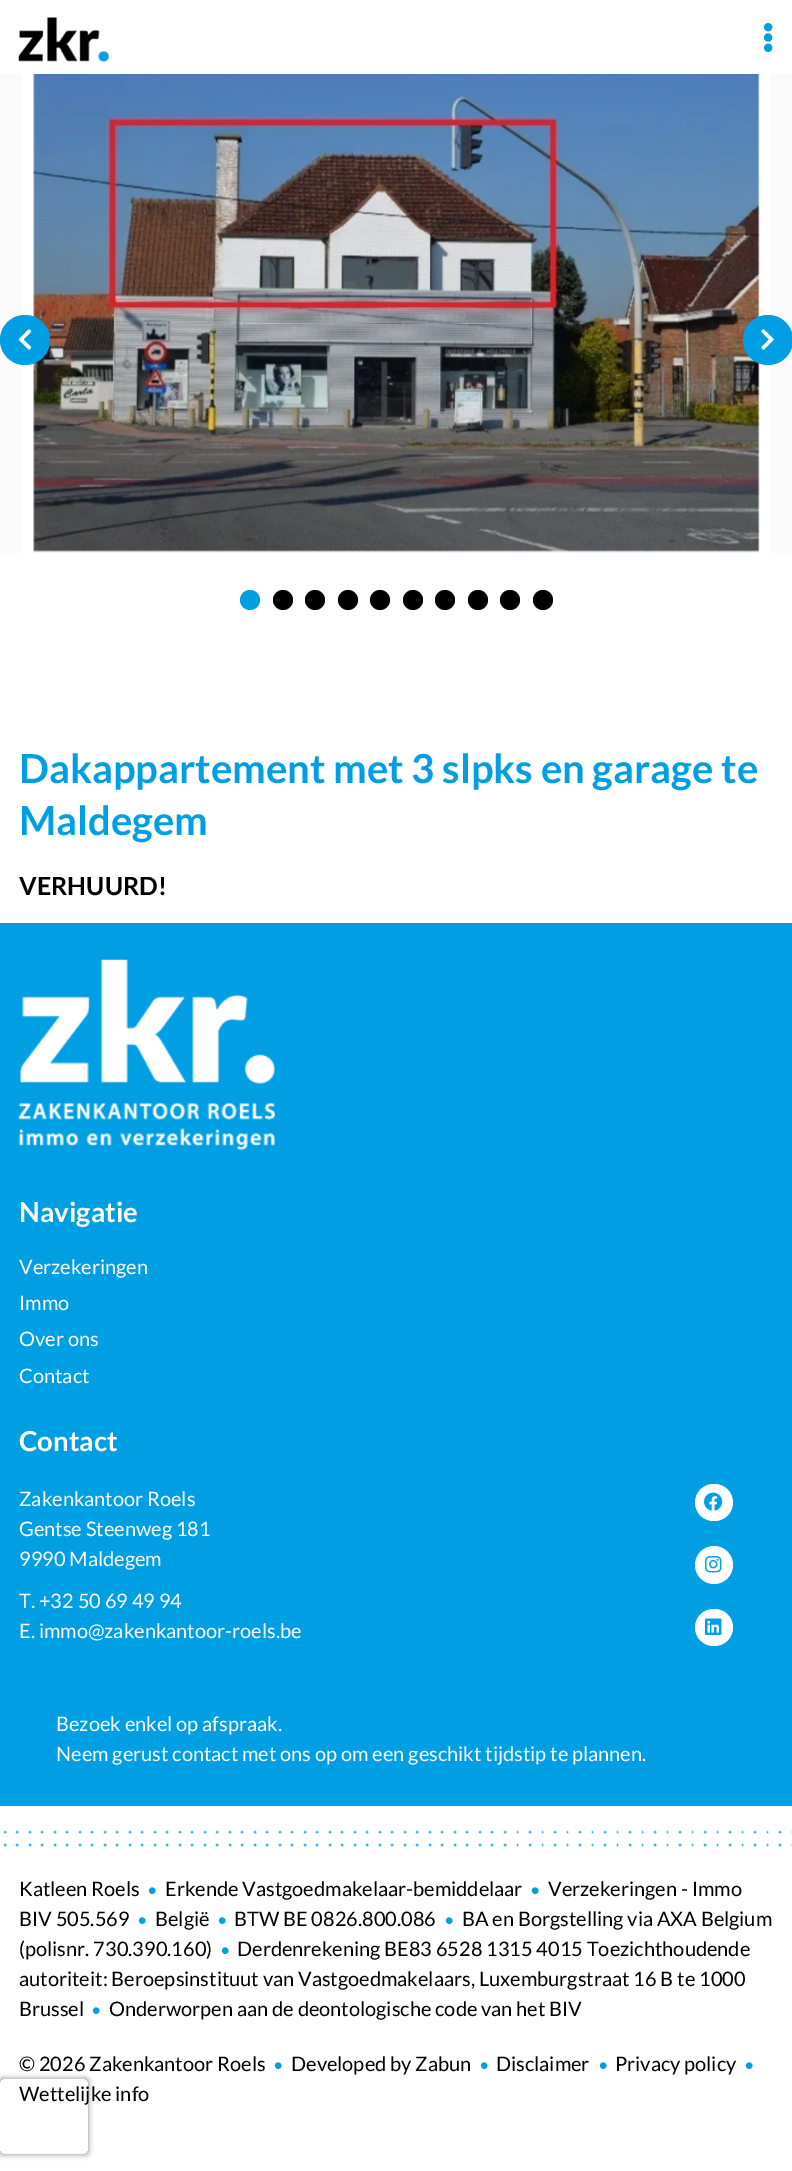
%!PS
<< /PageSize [792 2171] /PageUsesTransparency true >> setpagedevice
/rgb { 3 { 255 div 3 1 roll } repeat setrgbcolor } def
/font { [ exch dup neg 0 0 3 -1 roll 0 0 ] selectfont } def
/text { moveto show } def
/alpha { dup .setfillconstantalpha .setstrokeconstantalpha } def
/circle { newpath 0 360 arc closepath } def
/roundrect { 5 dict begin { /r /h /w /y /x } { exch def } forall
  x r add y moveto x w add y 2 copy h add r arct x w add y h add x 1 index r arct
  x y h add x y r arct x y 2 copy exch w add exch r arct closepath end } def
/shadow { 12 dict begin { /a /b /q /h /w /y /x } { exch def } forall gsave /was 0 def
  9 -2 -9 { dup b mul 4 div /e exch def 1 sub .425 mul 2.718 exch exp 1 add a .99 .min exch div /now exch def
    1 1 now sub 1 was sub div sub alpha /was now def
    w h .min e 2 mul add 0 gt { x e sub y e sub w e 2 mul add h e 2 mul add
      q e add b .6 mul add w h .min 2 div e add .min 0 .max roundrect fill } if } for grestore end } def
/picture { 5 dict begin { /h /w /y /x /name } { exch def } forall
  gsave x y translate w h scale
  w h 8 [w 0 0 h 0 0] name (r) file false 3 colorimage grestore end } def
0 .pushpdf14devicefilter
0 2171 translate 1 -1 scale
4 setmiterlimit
255 255 255 rgb
0 0 792 2171 rectfill
(img_01.rgb) 18 17 91 45 picture
(img_02.rgb) 763 23 10 29 picture
250 250 250 rgb
0 74 21 479 rectfill
245 245 245 rgb
34 74 725 479 rectfill
(img_03.rgb) 33 74 727 478 picture
250 250 250 rgb
771 74 21 479 rectfill
0 158 226 rgb
25 340 25 circle fill
(img_04.rgb) 18 329 14 21 picture
768 340 25 circle fill
(img_05.rgb) 761 329 13 21 picture
250 600 10 circle fill
0 0 0 rgb
283 600 10 circle fill
315 600 10 circle fill
348 600 10 circle fill
380 600 10 circle fill
413 600 10 circle fill
445 600 10 circle fill
478 600 10 circle fill
510 600 10 circle fill
543 600 10 circle fill
0 158 226 rgb
0 923 792 883 rectfill
(img_06.rgb) 18 959 257 191 picture
255 255 255 rgb
695 1484 38 37 18.5 roundrect fill
(img_07.rgb) 704 1492 19 19 picture
714 1565 19 circle fill
(img_08.rgb) 705 1556 17 17 picture
695 1609 38 37 18.5 roundrect fill
(img_09.rgb) 705 1618 17 17 picture
(img_10.rgb) 4 1830 788 17 picture
gsave
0 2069 moveto 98 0 rlineto 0 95 rlineto -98 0 rlineto closepath 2.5 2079 moveto 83 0 rlineto 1.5 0 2.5 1 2.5 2.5 rcurveto 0 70 rlineto 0 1.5 -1 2.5 -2.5 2.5 rcurveto -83 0 rlineto -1.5 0 -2.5 -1 -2.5 -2.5 rcurveto 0 -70 rlineto 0 -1.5 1 -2.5 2.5 -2.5 rcurveto closepath eoclip newpath
128 128 128 rgb
0 2079 88 75 2.5 3 1 shadow
grestore
/Lato-Bold 40 font
0 158 226 rgb
(Dakappartement met 3 slpks en garage te) 19 783 text
(Maldegem) 19 835 text
/Lato-Bold 25 font
0 0 0 rgb
(VERHUURD!) 19 895 text
/Lato-Bold 27.5 font
255 255 255 rgb
(Navigatie) 19 1222 text
/Lato-Regular 20 font
(Verzekeringen) 19 1274 text
(Immo) 19 1310 text
(Over ons) 19 1346 text
(Contact) 19 1383 text
/Lato-Bold 27.5 font
(Contact) 19 1451 text
/Lato-Regular 20 font
(Zakenkantoor Roels) 19 1506 text
(Gentse Steenweg 181) 19 1536 text
(9990 Maldegem) 19 1566 text
(T. +32 50 69 49 94) 19 1608 text
(E. immo@zakenkantoor-roels.be) 19 1638 text
(Bezoek enkel op afspraak.) 56 1731 text
(Neem gerust contact met ons op om een geschikt tijdstip te plannen.) 56 1761 text
0 0 0 rgb
(Katleen Roels) 19 1896 text
/Lato-Regular 18 font
0 158 226 rgb
(•) 147 1896 text
/Lato-Regular 20 font
0 0 0 rgb
(Erkende Vastgoedmakelaar-bemiddelaar) 165 1896 text
/Lato-Regular 18 font
0 158 226 rgb
(•) 530 1896 text
/Lato-Regular 20 font
0 0 0 rgb
(Verzekeringen - Immo) 548 1896 text
(BIV 505.569) 19 1926 text
/Lato-Regular 18 font
0 158 226 rgb
(•) 137 1926 text
/Lato-Regular 20 font
0 0 0 rgb
(België) 155 1926 text
/Lato-Regular 18 font
0 158 226 rgb
(•) 217 1926 text
/Lato-Regular 20 font
0 0 0 rgb
(BTW BE 0826.800.086) 234 1926 text
/Lato-Regular 18 font
0 158 226 rgb
(•) 444 1926 text
/Lato-Regular 20 font
0 0 0 rgb
(BA en Borgstelling via AXA Belgium) 462 1926 text
(\(polisnr. 730.390.160\)) 19 1956 text
/Lato-Regular 18 font
0 158 226 rgb
(•) 220 1956 text
/Lato-Regular 20 font
0 0 0 rgb
(Derdenrekening BE83 6528 1315 4015 Toezichthoudende) 237 1956 text
(autoriteit: Beroepsinstituut van Vastgoedmakelaars, Luxemburgstraat 16 B te 1000) 19 1986 text
(Brussel) 19 2016 text
/Lato-Regular 18 font
0 158 226 rgb
(•) 91 2016 text
/Lato-Regular 20 font
0 0 0 rgb
(Onderworpen aan de deontologische code van het BIV) 109 2016 text
(© 2026 Zakenkantoor Roels) 19 2071 text
/Lato-Regular 18 font
0 158 226 rgb
(•) 273 2071 text
/Lato-Regular 20 font
0 0 0 rgb
(Developed by Zabun) 291 2071 text
/Lato-Regular 18 font
0 158 226 rgb
(•) 479 2071 text
/Lato-Regular 20 font
0 0 0 rgb
(Disclaimer) 496 2071 text
/Lato-Regular 18 font
0 158 226 rgb
(•) 598 2071 text
/Lato-Regular 20 font
0 0 0 rgb
(Privacy policy) 615 2071 text
/Lato-Regular 18 font
0 158 226 rgb
(•) 744 2071 text
/Lato-Regular 20 font
0 0 0 rgb
(Wettelijke info) 19 2101 text
.poppdf14devicefilter showpage
